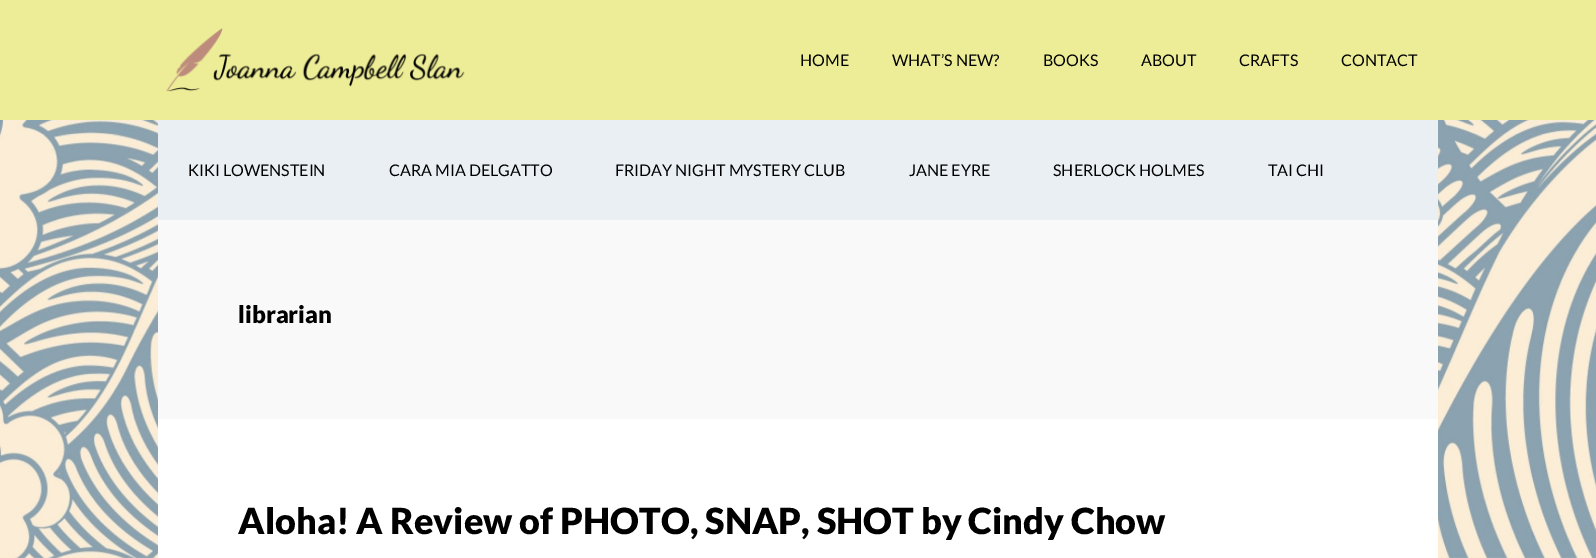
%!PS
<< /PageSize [1596 558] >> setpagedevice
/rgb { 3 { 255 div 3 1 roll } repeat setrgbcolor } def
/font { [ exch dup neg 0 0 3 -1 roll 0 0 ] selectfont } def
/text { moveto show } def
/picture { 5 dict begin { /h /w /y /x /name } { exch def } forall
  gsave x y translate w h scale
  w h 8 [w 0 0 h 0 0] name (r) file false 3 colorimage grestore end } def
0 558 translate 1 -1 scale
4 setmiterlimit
255 255 255 rgb
0 0 1596 558 rectfill
(img_01.rgb) 0 120 1596 438 picture
237 237 151 rgb
0 0 1596 120 rectfill
(img_02.rgb) 166 28 299 64 picture
255 255 255 rgb
158 419 1280 139 rectfill
234 239 243 rgb
158 120 1280 100 rectfill
249 249 249 rgb
158 220 1280 199 rectfill
/Lato-Regular 16 font
0 0 0 rgb
(HOME) 800 66 text
(WHAT’S NEW?) 892 66 text
(BOOKS) 1043 66 text
(ABOUT) 1141 66 text
(CRAFTS) 1239 66 text
(CONTACT) 1341 66 text
(KIKI LOWENSTEIN) 188 176 text
(CARA MIA DELGATTO) 389 176 text
(FRIDAY NIGHT MYSTERY CLUB) 615 176 text
(JANE EYRE) 909 176 text
(SHERLOCK HOLMES) 1053 176 text
(TAI CHI) 1268 176 text
/Lato-Black 24 font
(librarian) 238 323 text
/Lato-Black 36 font
(Aloha! A Review of PHOTO, SNAP, SHOT by Cindy Chow) 238 534 text
showpage
